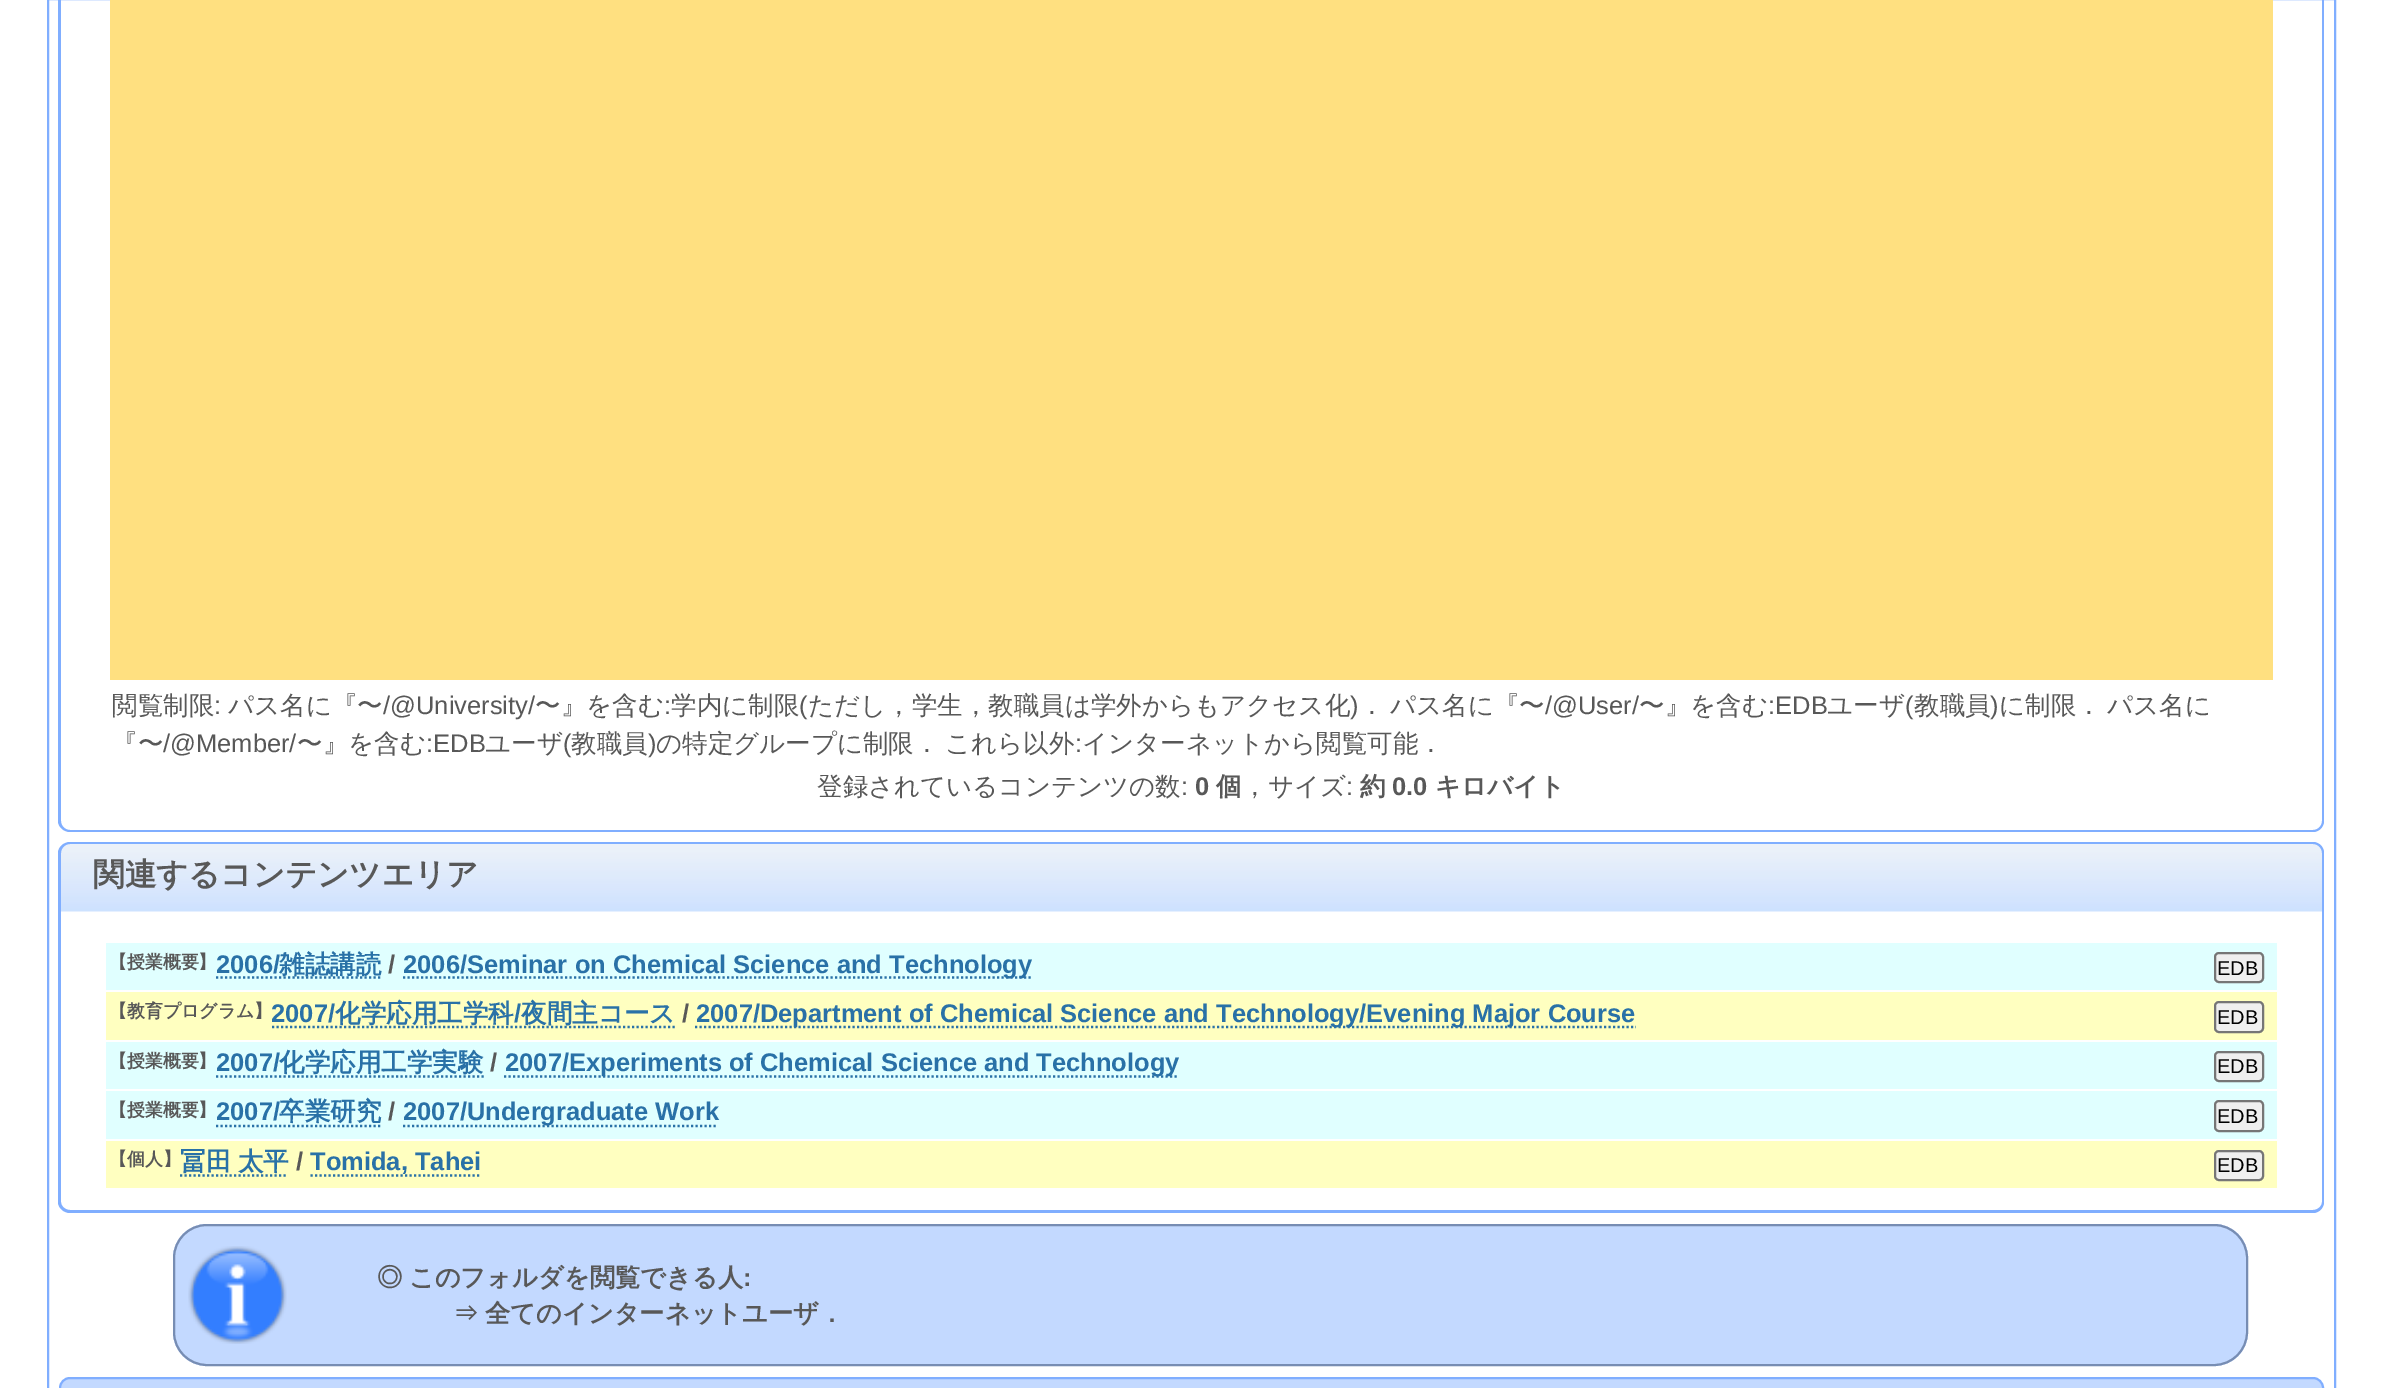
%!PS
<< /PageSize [2382 1388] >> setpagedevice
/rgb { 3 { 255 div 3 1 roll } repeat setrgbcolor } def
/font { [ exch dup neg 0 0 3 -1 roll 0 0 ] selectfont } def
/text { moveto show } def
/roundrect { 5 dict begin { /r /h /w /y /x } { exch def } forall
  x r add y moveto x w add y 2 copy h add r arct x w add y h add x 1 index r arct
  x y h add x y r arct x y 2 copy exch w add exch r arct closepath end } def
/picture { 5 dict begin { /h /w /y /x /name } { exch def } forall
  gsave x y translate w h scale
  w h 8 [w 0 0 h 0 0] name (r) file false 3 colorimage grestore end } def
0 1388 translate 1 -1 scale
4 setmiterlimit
255 255 255 rgb
0 0 2382 1388 rectfill
128 174 255 rgb
2 setlinewidth
48 -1 2287 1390 rectstroke
58 -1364 moveto 2266 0 rlineto 0 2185 rlineto 0 6 -5 11 -11 11 rcurveto -2243 0 rlineto -6 0 -12 -5 -12 -11 rcurveto closepath 61 -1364 moveto 2261 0 rlineto 0 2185 rlineto 0 5 -4 9 -9 9 rcurveto -2243 0 rlineto -5 0 -9 -4 -9 -9 rcurveto closepath eofill
255 224 128 rgb
110 0 2163 680 rectfill
(img_01.rgb) 58 844 2266 68 picture
128 174 255 rgb
70 842 moveto 2243 0 rlineto 6 0 11 5 11 11 rcurveto 0 65 rlineto -2266 0 rlineto 0 -65 rlineto 0 -6 6 -11 12 -11 rcurveto closepath 70 844 moveto 2243 0 rlineto 5 0 9 4 9 9 rcurveto 0 65 rlineto -2261 0 rlineto 0 -65 rlineto 0 -5 4 -9 9 -9 rcurveto closepath eofill
58 918 moveto 2266 0 rlineto 0 284 rlineto 0 6 -5 11 -11 11 rcurveto -2243 0 rlineto -6 0 -12 -5 -12 -11 rcurveto closepath 61 918 moveto 2261 0 rlineto 0 284 rlineto 0 4 -4 8 -9 8 rcurveto -2243 0 rlineto -5 0 -9 -4 -9 -8 rcurveto closepath eofill
224 255 255 rgb
106 943 2171 47 rectfill
41 113 167 rgb
2.2 setlinewidth
[2.25 2.25] 0 setdash
216 977.5 moveto 166.5 0 rlineto stroke
403 977.5 moveto 630 0 rlineto stroke
239 239 239 rgb
2215 953 48 29 4 roundrect gsave fill grestore
118 118 118 rgb
2 setlinewidth
[] 0 setdash
stroke
255 255 192 rgb
106 992 2171 48 rectfill
41 113 167 rgb
2.2 setlinewidth
[2.25 2.25] 0 setdash
272 1027 moveto 403 0 rlineto stroke
695 1027 moveto 941 0 rlineto stroke
239 239 239 rgb
2215 1002 48 30 4 roundrect gsave fill grestore
118 118 118 rgb
2 setlinewidth
[] 0 setdash
stroke
224 255 255 rgb
106 1042 2171 47 rectfill
41 113 167 rgb
2.2 setlinewidth
[2.25 2.25] 0 setdash
216 1076.5 moveto 268 0 rlineto stroke
504 1076.5 moveto 675 0 rlineto stroke
239 239 239 rgb
2215 1052 48 29 4 roundrect gsave fill grestore
118 118 118 rgb
2 setlinewidth
[] 0 setdash
stroke
224 255 255 rgb
106 1091 2171 48 rectfill
41 113 167 rgb
2.2 setlinewidth
[2.25 2.25] 0 setdash
216 1126 moveto 166.5 0 rlineto stroke
403 1126 moveto 315 0 rlineto stroke
239 239 239 rgb
2215 1101 48 30 4 roundrect gsave fill grestore
118 118 118 rgb
2 setlinewidth
[] 0 setdash
stroke
255 255 192 rgb
106 1141 2171 47 rectfill
41 113 167 rgb
2.2 setlinewidth
[2.25 2.25] 0 setdash
180 1175.5 moveto 108 0 rlineto stroke
310.5 1175.5 moveto 171 0 rlineto stroke
239 239 239 rgb
2215 1151 48 29 4 roundrect gsave fill grestore
118 118 118 rgb
2 setlinewidth
[] 0 setdash
stroke
195 217 255 rgb
173 1224 2075 142 34 roundrect fill
(img_02.rgb) 188 1246 99 98 picture
119 141 179 rgb
174 1225 2073 140 33 roundrect stroke
195 217 255 rgb
60 1378 2263 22 10 roundrect gsave fill grestore
128 174 255 rgb
stroke
/WenQuanYiZenHei-Medium 25.5 font
88 88 88 rgb
(閲覧制限) 112 714 text
/LiberationSans-Regular 25.5 font
(:) 214 714 text
/WenQuanYiZenHei-Medium 25.5 font
(パス名に『〜) 228 714 text
/LiberationSans-Regular 25.5 font
(/@University/) 383 714 text
/WenQuanYiZenHei-Medium 25.5 font
(〜』を含む) 535 714 text
/LiberationSans-Regular 25.5 font
(:) 664 714 text
/WenQuanYiZenHei-Medium 25.5 font
(学内に制限) 671 714 text
/LiberationSans-Regular 25.5 font
(\() 799 714 text
/WenQuanYiZenHei-Medium 25.5 font
(ただし，学生，教職員は学外からもアクセス化) 808 714 text
/LiberationSans-Regular 25.5 font
(\)) 1350 714 text
/WenQuanYiZenHei-Medium 25.5 font
1359 714 moveto -2 0 32 (． パス名に『〜) widthshow
/LiberationSans-Regular 25.5 font
(/@User/) 1545 714 text
/WenQuanYiZenHei-Medium 25.5 font
(〜』を含む) 1639 714 text
/LiberationSans-Regular 25.5 font
(:EDB) 1768 714 text
/WenQuanYiZenHei-Medium 25.5 font
(ユーザ) 1827 714 text
/LiberationSans-Regular 25.5 font
(\() 1905 714 text
/WenQuanYiZenHei-Medium 25.5 font
(教職員) 1914 714 text
/LiberationSans-Regular 25.5 font
(\)) 1990 714 text
/WenQuanYiZenHei-Medium 25.5 font
1999 714 moveto -2 0 32 (に制限． パス名に) widthshow
(『〜) 112 752 text
/LiberationSans-Regular 25.5 font
(/@Member/) 163 752 text
/WenQuanYiZenHei-Medium 25.5 font
(〜』を含む) 297 752 text
/LiberationSans-Regular 25.5 font
(:EDB) 426 752 text
/WenQuanYiZenHei-Medium 25.5 font
(ユーザ) 485 752 text
/LiberationSans-Regular 25.5 font
(\() 563 752 text
/WenQuanYiZenHei-Medium 25.5 font
(教職員) 571 752 text
/LiberationSans-Regular 25.5 font
(\)) 648 752 text
/WenQuanYiZenHei-Medium 25.5 font
656 752 moveto -2 0 32 (の特定グループに制限． これら以外) widthshow
/LiberationSans-Regular 25.5 font
(:) 1075 752 text
/WenQuanYiZenHei-Medium 25.5 font
(インターネットから閲覧可能．) 1082 752 text
(登録されているコンテンツの数) 817 795 text
/LiberationSans-Regular 25.5 font
(:) 1181 795 text
/LiberationSans-Bold 25.5 font
(0) 1195 795 text
/WenQuanYiZenHei-Bold 25.5 font
(個) 1216 795 text
/WenQuanYiZenHei-Medium 25.5 font
(，サイズ) 1242 795 text
/LiberationSans-Regular 25.5 font
(:) 1346 795 text
/WenQuanYiZenHei-Bold 25.5 font
(約) 1360 795 text
/LiberationSans-Bold 25.5 font
(0.0) 1392 795 text
/WenQuanYiZenHei-Bold 25.5 font
(キロバイト) 1435 795 text
/WenQuanYiZenHei-Bold 31.5 font
(関連するコンテンツエリア) 93 885 text
/WenQuanYiZenHei-Bold 17.9 font
(【授業概要】) 109 968 text
/LiberationSans-Bold 25.5 font
41 113 167 rgb
(2006/) 216 973 text
/WenQuanYiZenHei-Bold 25.5 font
(雑誌講読) 279 973 text
/LiberationSans-Bold 25.5 font
88 88 88 rgb
(/) 388 973 text
41 113 167 rgb
(2006/Seminar on Chemical Science and Technology) 403 973 text
/LiberationSans-Regular 20 font
0 0 0 rgb
(EDB) 2217 975 text
/WenQuanYiZenHei-Bold 17.9 font
88 88 88 rgb
(【教育プログラム】) 109 1017 text
/LiberationSans-Bold 25.5 font
41 113 167 rgb
(2007/) 271 1022 text
/WenQuanYiZenHei-Bold 25.5 font
(化学応用工学科) 335 1022 text
/LiberationSans-Bold 25.5 font
(/) 514 1022 text
/WenQuanYiZenHei-Bold 25.5 font
(夜間主コース) 521 1022 text
/LiberationSans-Bold 25.5 font
88 88 88 rgb
(/) 682 1022 text
41 113 167 rgb
(2007/Department of Chemical Science and Technology/Evening Major Course) 696 1022 text
/LiberationSans-Regular 20 font
0 0 0 rgb
(EDB) 2217 1024 text
/WenQuanYiZenHei-Bold 17.9 font
88 88 88 rgb
(【授業概要】) 109 1067 text
/LiberationSans-Bold 25.5 font
41 113 167 rgb
(2007/) 216 1071 text
/WenQuanYiZenHei-Bold 25.5 font
(化学応用工学実験) 279 1071 text
/LiberationSans-Bold 25.5 font
88 88 88 rgb
(/) 490 1071 text
41 113 167 rgb
(2007/Experiments of Chemical Science and Technology) 505 1071 text
/LiberationSans-Regular 20 font
0 0 0 rgb
(EDB) 2217 1073 text
/WenQuanYiZenHei-Bold 17.9 font
88 88 88 rgb
(【授業概要】) 109 1116 text
/LiberationSans-Bold 25.5 font
41 113 167 rgb
(2007/) 216 1120 text
/WenQuanYiZenHei-Bold 25.5 font
(卒業研究) 279 1120 text
/LiberationSans-Bold 25.5 font
88 88 88 rgb
(/) 388 1120 text
41 113 167 rgb
(2007/Undergraduate Work) 403 1120 text
/LiberationSans-Regular 20 font
0 0 0 rgb
(EDB) 2217 1123 text
/WenQuanYiZenHei-Bold 17.9 font
88 88 88 rgb
(【個人】) 109 1165 text
/WenQuanYiZenHei-Bold 25.5 font
41 113 167 rgb
180 1170 moveto -1 0 32 (冨田 太平) widthshow
/LiberationSans-Bold 25.5 font
88 88 88 rgb
(/) 296 1170 text
41 113 167 rgb
(Tomida, Tahei) 310 1170 text
/LiberationSans-Regular 20 font
0 0 0 rgb
(EDB) 2217 1172 text
/WenQuanYiZenHei-Bold 25.25 font
88 88 88 rgb
377 1286 moveto -1 0 32 (◎ このフォルダを閲覧できる人) widthshow
/LiberationSans-Bold 25.25 font
(:) 743 1286 text
/WenQuanYiZenHei-Bold 25.25 font
(⇒) 453 1322 text
(全てのインターネットユーザ．) 485 1322 text
showpage
